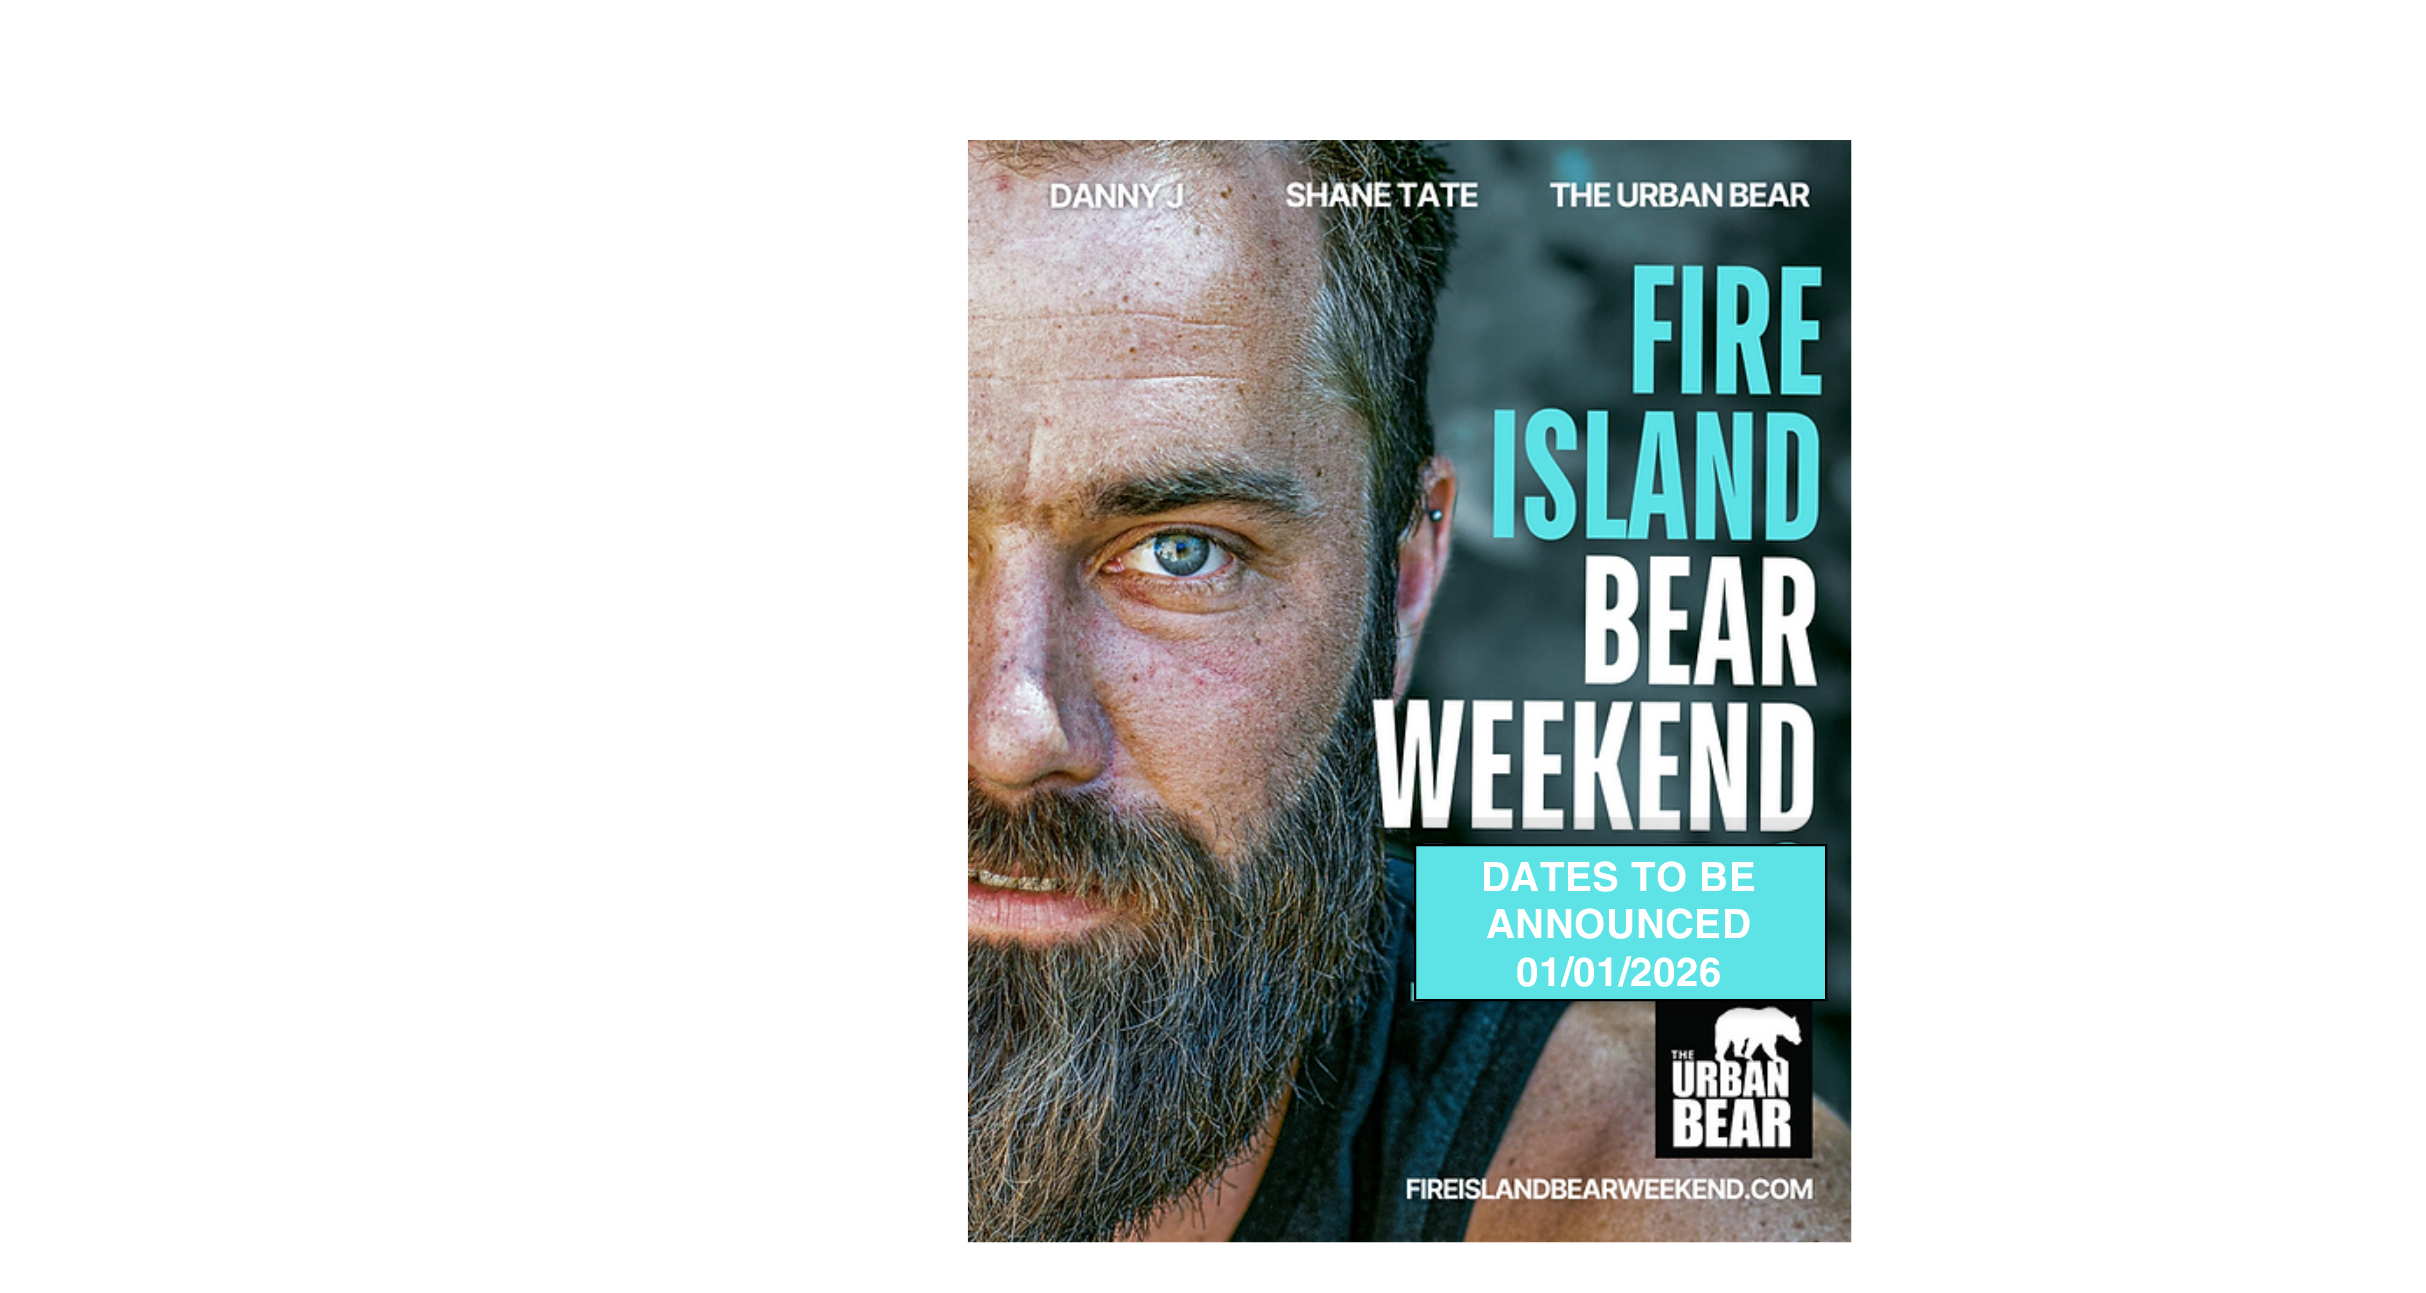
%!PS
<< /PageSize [2426 1293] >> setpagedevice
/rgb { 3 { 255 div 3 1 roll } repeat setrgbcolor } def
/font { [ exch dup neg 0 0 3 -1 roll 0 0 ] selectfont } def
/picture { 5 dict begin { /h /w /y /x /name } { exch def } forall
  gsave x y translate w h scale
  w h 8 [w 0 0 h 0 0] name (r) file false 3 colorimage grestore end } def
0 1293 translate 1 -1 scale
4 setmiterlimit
255 255 255 rgb
0 0 2426 1293 rectfill
(img_01.rgb) 967 140 885 1103 picture
(img_02.rgb) 1402 817 74 196 picture
(img_03.rgb) 1475 817 291 202 picture
(img_04.rgb) 1765 817 76 202 picture
93 227 229 rgb
1415 845 moveto 411 0 rlineto 0 155 rlineto -411 0 rlineto closepath gsave fill grestore
0 0 0 rgb
2 setlinewidth
stroke
/helvetica-Bold 40.25 font
255 255 255 rgb
1481 891 moveto 0.4 0 (DATES TO BE) ashow
1486 938 moveto 0.4 0 (ANNOUNCED) ashow
1516 986 moveto 0.4 0 (01/01/2026) ashow
showpage
